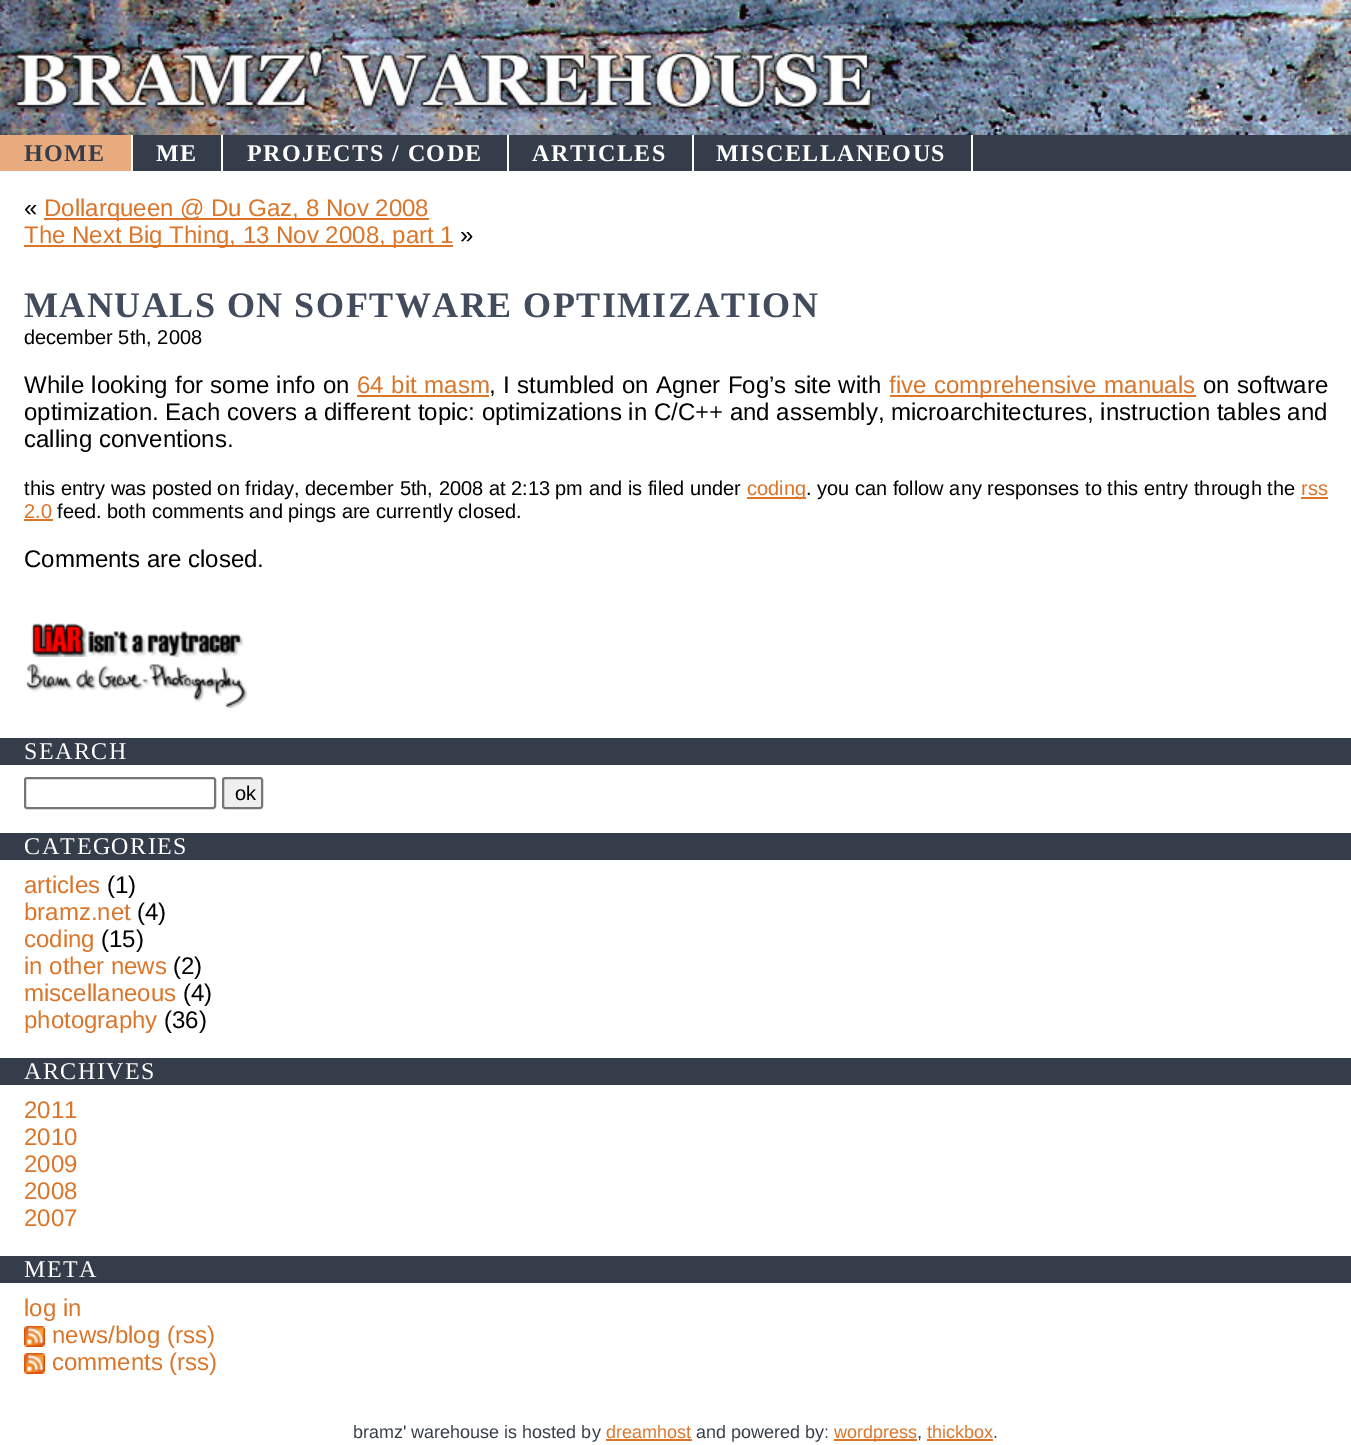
%!PS
<< /PageSize [1351 1445] >> setpagedevice
/rgb { 3 { 255 div 3 1 roll } repeat setrgbcolor } def
/font { [ exch dup neg 0 0 3 -1 roll 0 0 ] selectfont } def
/text { moveto show } def
/roundrect { 5 dict begin { /r /h /w /y /x } { exch def } forall
  x r add y moveto x w add y 2 copy h add r arct x w add y h add x 1 index r arct
  x y h add x y r arct x y 2 copy exch w add exch r arct closepath end } def
/picture { 5 dict begin { /h /w /y /x /name } { exch def } forall
  gsave x y translate w h scale
  w h 8 [w 0 0 h 0 0] name (r) file false 3 colorimage grestore end } def
0 1445 translate 1 -1 scale
4 setmiterlimit
255 255 255 rgb
0 0 1351 1445 rectfill
(img_01.rgb) 0 0 1351 135 picture
(img_02.rgb) 12 6 888 118 picture
54 61 74 rgb
133 135 1218 36 rectfill
233 172 127 rgb
0 135 131 36 rectfill
255 255 255 rgb
221 135 2 36 rectfill
507 135 2 36 rectfill
692 135 2 36 rectfill
971 135 2 36 rectfill
218 117 41 rgb
44 218 385 2 rectfill
24 245 429 2 rectfill
357 395 132 2 rectfill
890 395 306 2 rectfill
747 497 59 2 rectfill
1301 497 27 2 rectfill
24 519 29 2 rectfill
(img_03.rgb) 31 623 213 34 picture
(img_04.rgb) 26 664 222 44 picture
54 61 74 rgb
0 738 1351 27 rectfill
118 118 118 rgb
2 setlinewidth
25 778 190 30 2 roundrect stroke
239 239 239 rgb
223 778 39 30 2 roundrect gsave fill grestore
118 118 118 rgb
stroke
54 61 74 rgb
0 833 1351 27 rectfill
0 1058 1351 27 rectfill
0 1256 1351 27 rectfill
(img_05.rgb) 24 1326 21 21 picture
(img_05.rgb) 24 1353 21 21 picture
218 117 41 rgb
606 1439 86 2 rectfill
834 1439 83 2 rectfill
927 1439 66 2 rectfill
/LiberationSerif-Bold 24 font
54 61 74 rgb
24 161 moveto 1.5 0 (HOME) ashow
255 255 255 rgb
156 161 moveto 1.5 0 (ME) ashow
247 161 moveto 1.5 0 (PROJECTS / CODE) ashow
532 161 moveto 1.5 0 (ARTICLES) ashow
716 161 moveto 1.5 0 (MISCELLANEOUS) ashow
/LiberationSans-Regular 24 font
0 0 0 rgb
(«) 24 216 text
218 117 41 rgb
(Dollarqueen @ Du Gaz, 8 Nov 2008) 44 216 text
(The Next Big Thing, 13 Nov 2008, part 1) 24 243 text
0 0 0 rgb
(») 460 243 text
/LiberationSerif-Bold 36 font
67 76 92 rgb
24 317 moveto 1.5 0 (MANUALS ON SOFTWARE OPTIMIZATION) ashow
/LiberationSans-Regular 20 font
0 0 0 rgb
(december 5th, 2008) 24 344 text
/LiberationSans-Regular 24 font
24 393 moveto 0.75 0 32 (While looking for some info on) widthshow
218 117 41 rgb
357 393 moveto 1 0 32 (64 bit masm) widthshow
0 0 0 rgb
489 393 moveto 0.75 0 32 (, I stumbled on Agner Fog’s site with) widthshow
218 117 41 rgb
889 393 moveto 1 0 32 (five comprehensive manuals) widthshow
0 0 0 rgb
1203 393 moveto 1 0 32 (on software) widthshow
(optimization. Each covers a different topic: optimizations in C/C++ and assembly, microarchitectures, instruction tables and) 24 420 text
(calling conventions.) 24 447 text
/LiberationSans-Regular 20 font
(this entry was posted on friday, december 5th, 2008 at 2:13 pm and is filed under) 24 495 text
218 117 41 rgb
(coding) 747 495 text
0 0 0 rgb
(. you can follow any responses to this entry through the) 806 495 text
218 117 41 rgb
(rss) 1301 495 text
(2.0) 24 518 text
0 0 0 rgb
(feed. both comments and pings are currently closed.) 57 518 text
/LiberationSans-Regular 24 font
(Comments are closed.) 24 567 text
/LiberationSerif-Regular 24 font
255 255 255 rgb
24 759 moveto 1.5 0 (SEARCH) ashow
/LiberationSans-Regular 20 font
0 0 0 rgb
(ok) 235 800 text
/LiberationSerif-Regular 24 font
255 255 255 rgb
24 854 moveto 1.5 0 (CATEGORIES) ashow
/LiberationSans-Regular 24 font
218 117 41 rgb
(articles) 24 893 text
0 0 0 rgb
(\(1\)) 107 893 text
218 117 41 rgb
(bramz.net) 24 920 text
0 0 0 rgb
(\(4\)) 137 920 text
218 117 41 rgb
(coding) 24 947 text
0 0 0 rgb
(\(15\)) 101 947 text
218 117 41 rgb
(in other news) 24 974 text
0 0 0 rgb
(\(2\)) 173 974 text
218 117 41 rgb
(miscellaneous) 24 1001 text
0 0 0 rgb
(\(4\)) 183 1001 text
218 117 41 rgb
(photography) 24 1028 text
0 0 0 rgb
(\(36\)) 164 1028 text
/LiberationSerif-Regular 24 font
255 255 255 rgb
24 1079 moveto 1.5 0 (ARCHIVES) ashow
/LiberationSans-Regular 24 font
218 117 41 rgb
(2011) 24 1118 text
(2010) 24 1145 text
(2009) 24 1172 text
(2008) 24 1199 text
(2007) 24 1226 text
/LiberationSerif-Regular 24 font
255 255 255 rgb
24 1277 moveto 1.5 0 (META) ashow
/LiberationSans-Regular 24 font
218 117 41 rgb
(log in) 24 1316 text
(news/blog \(rss\)) 52 1343 text
(comments \(rss\)) 52 1370 text
/LiberationSans-Regular 18 font
54 61 74 rgb
(bramz' warehouse is hosted by) 353 1438 text
218 117 41 rgb
(dreamhost) 606 1438 text
54 61 74 rgb
(and powered by:) 696 1438 text
218 117 41 rgb
(wordpress) 834 1438 text
54 61 74 rgb
(,) 917 1438 text
218 117 41 rgb
(thickbox) 927 1438 text
54 61 74 rgb
(.) 993 1438 text
showpage
